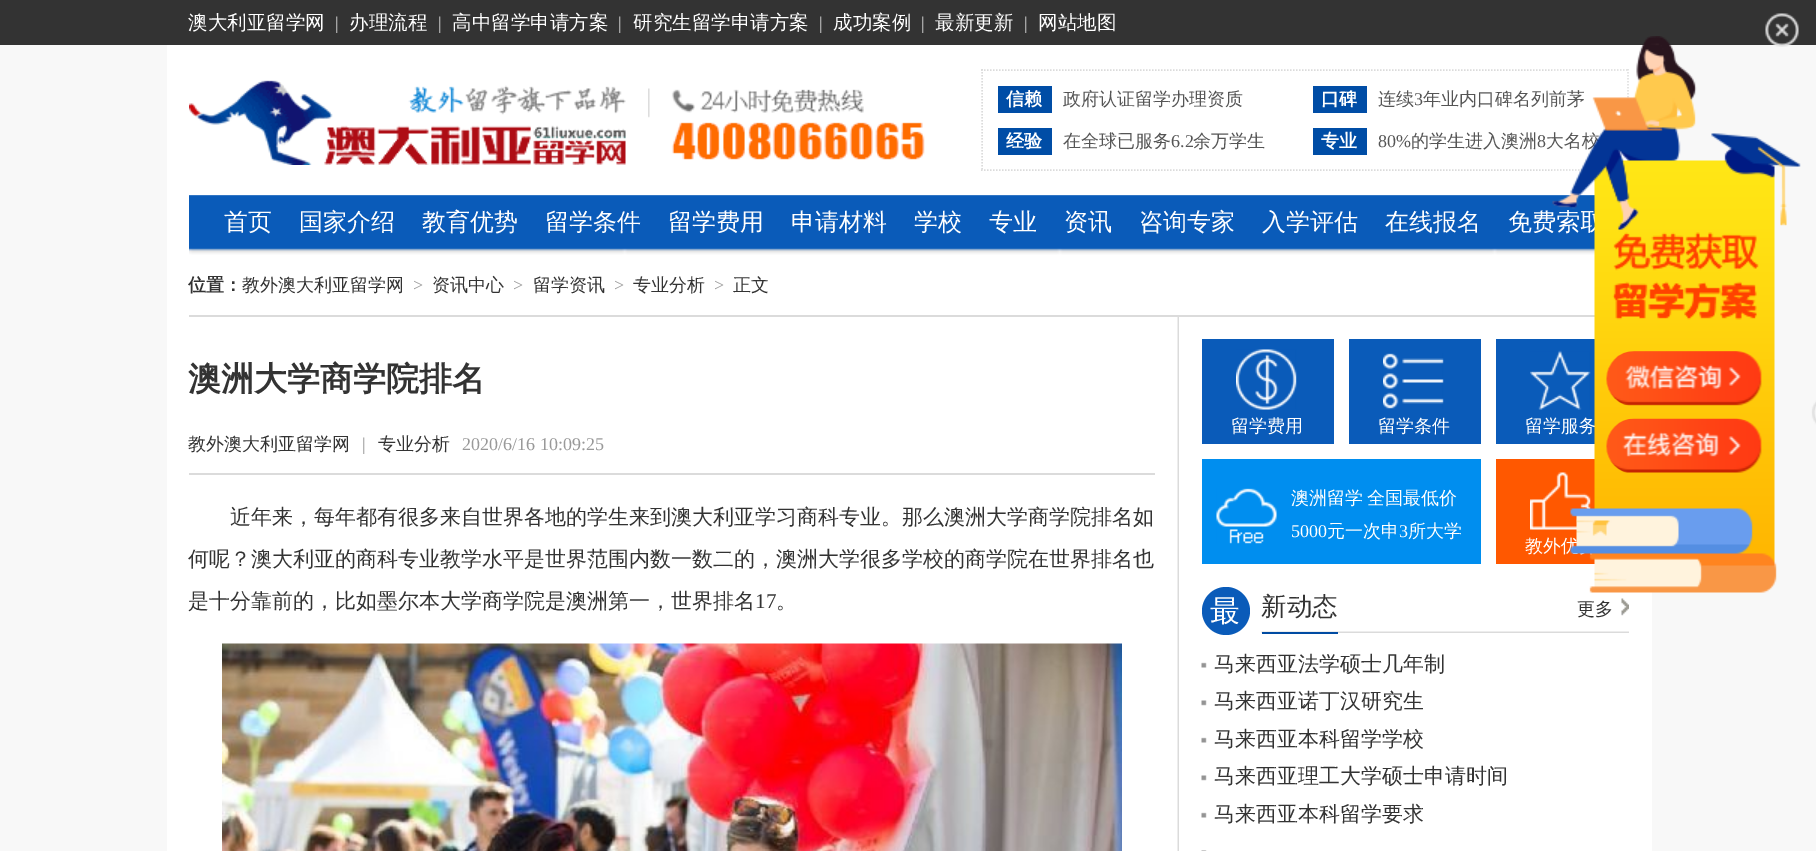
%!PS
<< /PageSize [1816 851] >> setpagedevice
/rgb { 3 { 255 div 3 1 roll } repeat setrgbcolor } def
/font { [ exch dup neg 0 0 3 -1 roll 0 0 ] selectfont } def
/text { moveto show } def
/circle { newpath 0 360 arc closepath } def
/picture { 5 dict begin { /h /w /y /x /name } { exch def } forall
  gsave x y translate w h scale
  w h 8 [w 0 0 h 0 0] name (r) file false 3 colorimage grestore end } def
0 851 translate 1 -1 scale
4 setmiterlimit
248 248 248 rgb
0 0 1816 851 rectfill
51 51 51 rgb
0 0 1816 45 rectfill
255 255 255 rgb
167 45 1485 806 rectfill
(img_05.rgb) 189 80 437 85 picture
(img_06.rgb) 648 88 277 72 picture
219 219 219 rgb
1.5 setlinewidth
[1.5 1.5] 0 setdash
981 70 moveto 648 0 rlineto stroke
1628 69 moveto 0 102 rlineto stroke
981 170 moveto 648 0 rlineto stroke
982 69 moveto 0 102 rlineto stroke
0 77 166 rgb
998 86 54 27 rectfill
1313 86 54 27 rectfill
998 128 54 27 rectfill
1313 128 54 27 rectfill
(img_07.rgb) 189 195 1406 60 picture
(img_08.rgb) 1177 317 2 534 picture
219 219 219 rgb
189 315 1406 2 rectfill
189 473 966 2 rectfill
(img_09.rgb) 222 643 900 208 picture
10 91 185 rgb
1202 339 132 105 rectfill
(img_10.rgb) 1236 349 61 61 picture
1349 339 132 105 rectfill
(img_11.rgb) 1383 353 61 56 picture
1496 339 99 105 rectfill
(img_12.rgb) 1530 350 61 60 picture
0 142 239 rgb
1202 459 279 105 rectfill
(img_13.rgb) 1216 488 61 56 picture
255 88 0 rgb
1496 459 99 105 rectfill
(img_14.rgb) 1530 472 61 58 picture
10 91 185 rgb
1226 611 24 circle fill
(img_15.rgb) 1261 631 368 2 picture
0 75 162 rgb
1262 632 76 2 rectfill
(img_16.rgb) 1621 598 8 18 picture
(img_17.rgb) 1201 662 6 6 picture
(img_18.rgb) 1201 700 6 6 picture
(img_17.rgb) 1201 737 6 6 picture
(img_18.rgb) 1201 775 6 6 picture
(img_17.rgb) 1201 812 6 6 picture
(img_19.rgb) 1201 850 6 1 picture
/WenQuanYiZenHei-Medium 19.5 font
255 255 255 rgb
(澳大利亚留学网) 188 29 text
/LiberationSerif-Regular 18 font
204 204 204 rgb
(|) 335 29 text
/WenQuanYiZenHei-Medium 19.5 font
255 255 255 rgb
(办理流程) 349 29 text
/LiberationSerif-Regular 18 font
204 204 204 rgb
(|) 438 29 text
/WenQuanYiZenHei-Medium 19.5 font
255 255 255 rgb
(高中留学申请方案) 452 29 text
/LiberationSerif-Regular 18 font
204 204 204 rgb
(|) 618 29 text
/WenQuanYiZenHei-Medium 19.5 font
255 255 255 rgb
(研究生留学申请方案) 633 29 text
/LiberationSerif-Regular 18 font
204 204 204 rgb
(|) 819 29 text
/WenQuanYiZenHei-Medium 19.5 font
255 255 255 rgb
(成功案例) 833 29 text
/LiberationSerif-Regular 18 font
204 204 204 rgb
(|) 921 29 text
/WenQuanYiZenHei-Medium 19.5 font
255 255 255 rgb
(最新更新) 935 29 text
/LiberationSerif-Regular 18 font
204 204 204 rgb
(|) 1024 29 text
/WenQuanYiZenHei-Medium 19.5 font
255 255 255 rgb
(网站地图) 1038 29 text
/WenQuanYiZenHei-Bold 18 font
(信赖) 1006 105 text
/WenQuanYiZenHei-Medium 18 font
85 85 85 rgb
(政府认证留学办理资质) 1063 105 text
/WenQuanYiZenHei-Bold 18 font
255 255 255 rgb
(口碑) 1321 105 text
/WenQuanYiZenHei-Medium 18 font
85 85 85 rgb
(连续) 1378 105 text
/LiberationSerif-Regular 18 font
(3) 1414 105 text
/WenQuanYiZenHei-Medium 18 font
(年业内口碑名列前茅) 1423 105 text
/WenQuanYiZenHei-Bold 18 font
255 255 255 rgb
(经验) 1006 147 text
/WenQuanYiZenHei-Medium 18 font
85 85 85 rgb
(在全球已服务) 1063 147 text
/LiberationSerif-Regular 18 font
(6.2) 1171 147 text
/WenQuanYiZenHei-Medium 18 font
(余万学生) 1193 147 text
/WenQuanYiZenHei-Bold 18 font
255 255 255 rgb
(专业) 1321 147 text
/LiberationSerif-Regular 18 font
85 85 85 rgb
(80%) 1378 147 text
/WenQuanYiZenHei-Medium 18 font
(的学生进入澳洲) 1411 147 text
/LiberationSerif-Regular 18 font
(8) 1537 147 text
/WenQuanYiZenHei-Medium 18 font
(大名校) 1546 147 text
/WenQuanYiZenHei-Medium 24 font
255 255 255 rgb
(首页) 224 230 text
(国家介绍) 299 230 text
(教育优势) 422 230 text
(留学条件) 545 230 text
(留学费用) 668 230 text
(申请材料) 791 230 text
(学校) 914 230 text
(专业) 989 230 text
(资讯) 1064 230 text
(咨询专家) 1139 230 text
(入学评估) 1262 230 text
(在线报名) 1385 230 text
(免费索取) 1508 230 text
/WenQuanYiZenHei-Bold 18 font
51 51 51 rgb
(位置：) 188 291 text
/WenQuanYiZenHei-Medium 18 font
(教外澳大利亚留学网) 242 291 text
/LiberationSerif-Regular 18 font
153 153 153 rgb
(>) 413 291 text
/WenQuanYiZenHei-Medium 18 font
51 51 51 rgb
(资讯中心) 432 291 text
/LiberationSerif-Regular 18 font
153 153 153 rgb
(>) 513 291 text
/WenQuanYiZenHei-Medium 18 font
51 51 51 rgb
(留学资讯) 533 291 text
/LiberationSerif-Regular 18 font
153 153 153 rgb
(>) 614 291 text
/WenQuanYiZenHei-Medium 18 font
51 51 51 rgb
(专业分析) 633 291 text
/LiberationSerif-Regular 18 font
153 153 153 rgb
(>) 714 291 text
/WenQuanYiZenHei-Medium 18 font
51 51 51 rgb
(正文) 733 291 text
/WenQuanYiZenHei-Bold 33 font
(澳洲大学商学院排名) 188 390 text
/WenQuanYiZenHei-Medium 18 font
(教外澳大利亚留学网) 188 450 text
/LiberationSerif-Regular 18 font
153 153 153 rgb
(|) 362 450 text
/WenQuanYiZenHei-Medium 18 font
51 51 51 rgb
(专业分析) 378 450 text
/LiberationSerif-Regular 18 font
153 153 153 rgb
(2020/6/16 10:09:25) 462 450 text
/WenQuanYiZenHei-Medium 21 font
51 51 51 rgb
(近年来，每年都有很多来自世界各地的学生来到澳大利亚学习商科专业。那么澳洲大学商学院排名如) 230 524 text
(何呢？澳大利亚的商科专业教学水平是世界范围内数一数二的，澳洲大学很多学校的商学院在世界排名也) 188 566 text
(是十分靠前的，比如墨尔本大学商学院是澳洲第一，世界排名) 188 608 text
/LiberationSerif-Regular 21 font
(17) 755 608 text
/WenQuanYiZenHei-Medium 21 font
(。) 776 608 text
/WenQuanYiZenHei-Medium 18 font
255 255 255 rgb
(留学费用) 1231 432 text
(留学条件) 1378 432 text
(留学服务) 1525 432 text
1291 504 moveto -1 0 32 (澳洲留学 全国最低价) widthshow
/LiberationSerif-Regular 18 font
(5000) 1291 537 text
/WenQuanYiZenHei-Medium 18 font
(元一次申) 1327 537 text
/LiberationSerif-Regular 18 font
(3) 1399 537 text
/WenQuanYiZenHei-Medium 18 font
(所大学) 1408 537 text
(教外优) 1525 552 text
(img_01.rgb) 1552 36 264 557 picture
(img_02.rgb) 1765 13 34 34 picture
(img_04.rgb) 1606 418 156 55 picture
(img_03.rgb) 1606 351 156 55 picture
/WenQuanYiZenHei-Medium 30 font
(最) 1210 621 text
/WenQuanYiZenHei-Medium 25.5 font
51 51 51 rgb
(新动态) 1261 615 text
/WenQuanYiZenHei-Medium 18 font
(更多) 1577 615 text
/WenQuanYiZenHei-Medium 21 font
(马来西亚法学硕士几年制) 1214 671 text
(马来西亚诺丁汉研究生) 1214 708 text
(马来西亚本科留学学校) 1214 746 text
(马来西亚理工大学硕士申请时间) 1214 783 text
(马来西亚本科留学要求) 1214 821 text
showpage
